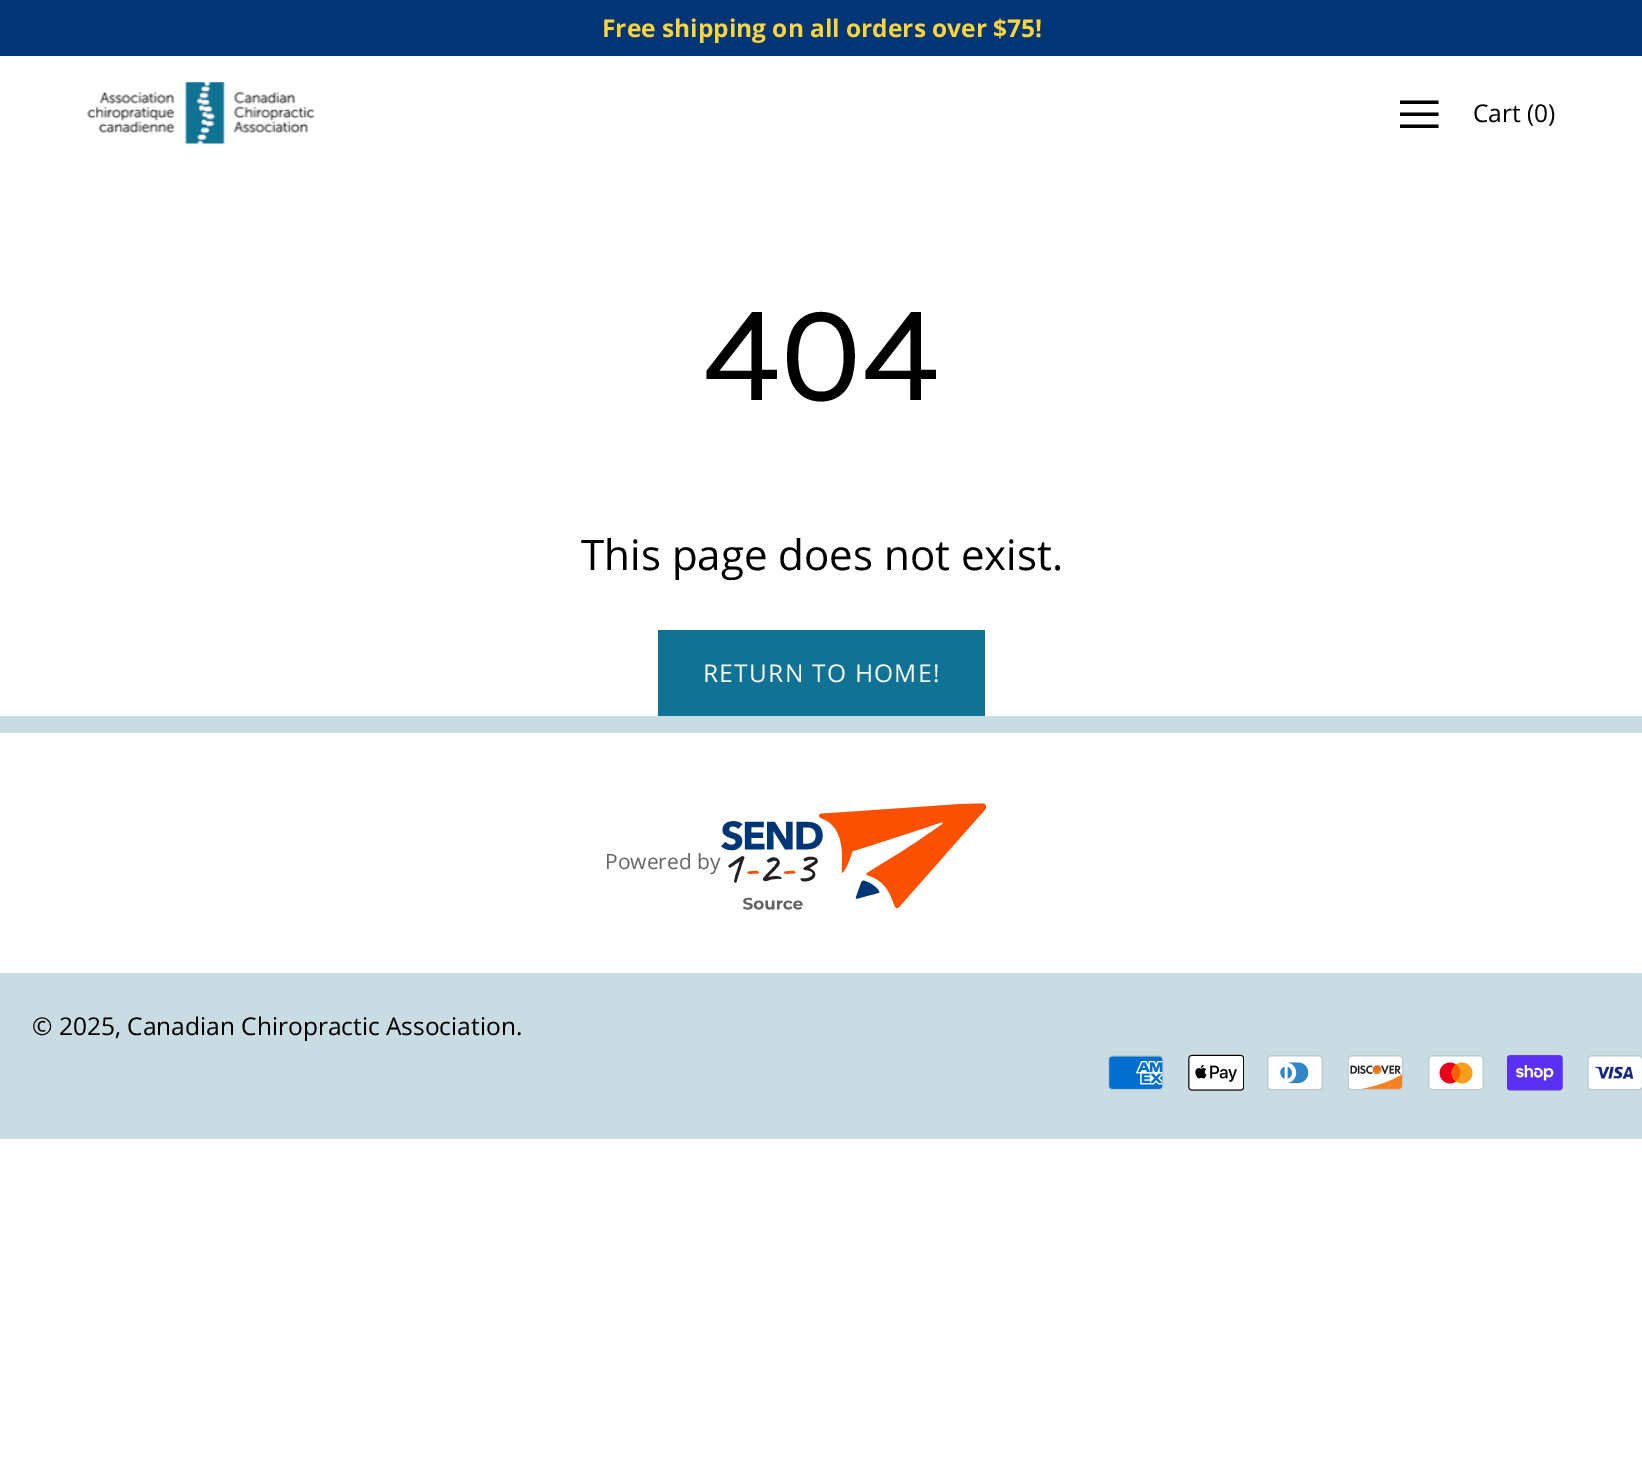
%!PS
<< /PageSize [1642 1463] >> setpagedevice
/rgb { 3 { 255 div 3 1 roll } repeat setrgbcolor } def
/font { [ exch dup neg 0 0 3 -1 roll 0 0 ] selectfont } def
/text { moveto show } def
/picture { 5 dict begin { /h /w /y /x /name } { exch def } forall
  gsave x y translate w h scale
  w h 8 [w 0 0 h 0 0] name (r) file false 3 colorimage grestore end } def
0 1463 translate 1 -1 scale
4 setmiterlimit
255 255 255 rgb
0 0 1642 1463 rectfill
0 54 118 rgb
0 0 1642 56 rectfill
(img_01.rgb) 87 82 227 62 picture
0 0 0 rgb
1400 100.5 moveto 0 3.5 rlineto 38.5 0 rlineto 0 -3.5 rlineto closepath 1400 112.5 moveto 0 3.5 rlineto 38.5 0 rlineto 0 -3.5 rlineto closepath 1400 124.5 moveto 0 3.5 rlineto 38.5 0 rlineto 0 -3.5 rlineto closepath fill
16 115 150 rgb
658 630 327 86 rectfill
202 220 227 rgb
0 716 1642 17 rectfill
(img_02.rgb) 721 803 266 107 picture
0 973 1642 166 rectfill
(img_03.rgb) 1108 1055 56 36 picture
(img_04.rgb) 1188 1054 56 37 picture
(img_05.rgb) 1267 1055 56 36 picture
(img_06.rgb) 1348 1055 56 36 picture
(img_07.rgb) 1428 1055 56 36 picture
(img_08.rgb) 1507 1055 56 36 picture
(img_09.rgb) 1587 1055 55 36 picture
/OpenSans-Bold 24.5 font
255 213 57 rgb
(Free shipping on all orders over $75!) 602 37 text
/OpenSans-Regular 24.5 font
0 0 0 rgb
(Cart \(0\)) 1473 122 text
/Karla-Regular 138 font
(404) 703 400 text
/OpenSans-Regular 42 font
(This page does not exist.) 581 570 text
/OpenSans-Regular 24.5 font
255 255 255 rgb
703 682 moveto 1.25 0 (RETURN TO HOME!) ashow
/OpenSans-Regular 21 font
102 102 102 rgb
(Powered by) 605 869 text
/OpenSans-Regular 24.5 font
0 0 0 rgb
(© 2025, Canadian Chiropractic Association.) 32 1035 text
showpage
